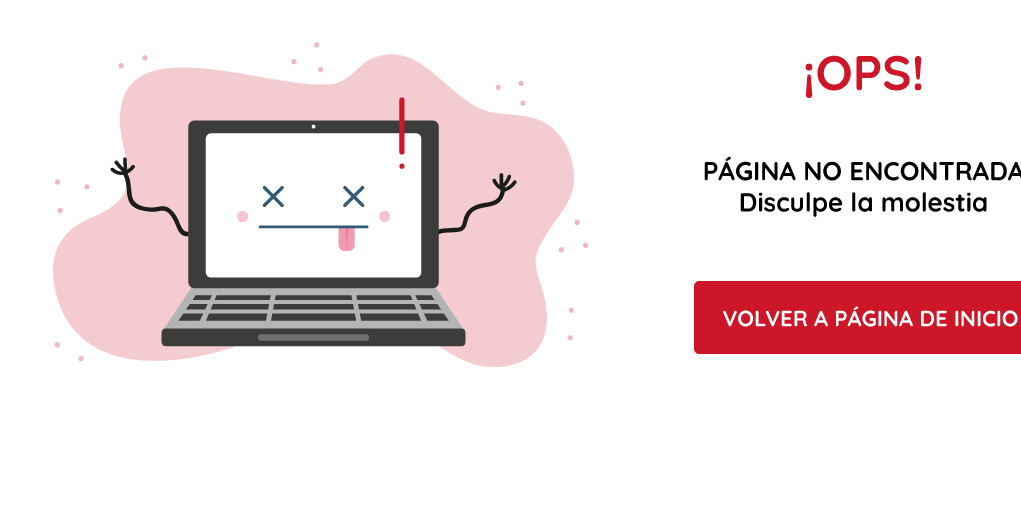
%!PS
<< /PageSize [1021 506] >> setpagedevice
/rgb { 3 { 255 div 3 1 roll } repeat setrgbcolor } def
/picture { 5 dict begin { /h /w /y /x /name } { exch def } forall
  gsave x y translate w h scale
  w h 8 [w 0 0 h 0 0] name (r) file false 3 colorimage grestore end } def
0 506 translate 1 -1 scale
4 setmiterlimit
255 255 255 rgb
0 0 1021 506 rectfill
(img_01.rgb) 53 42 968 325 picture
showpage
